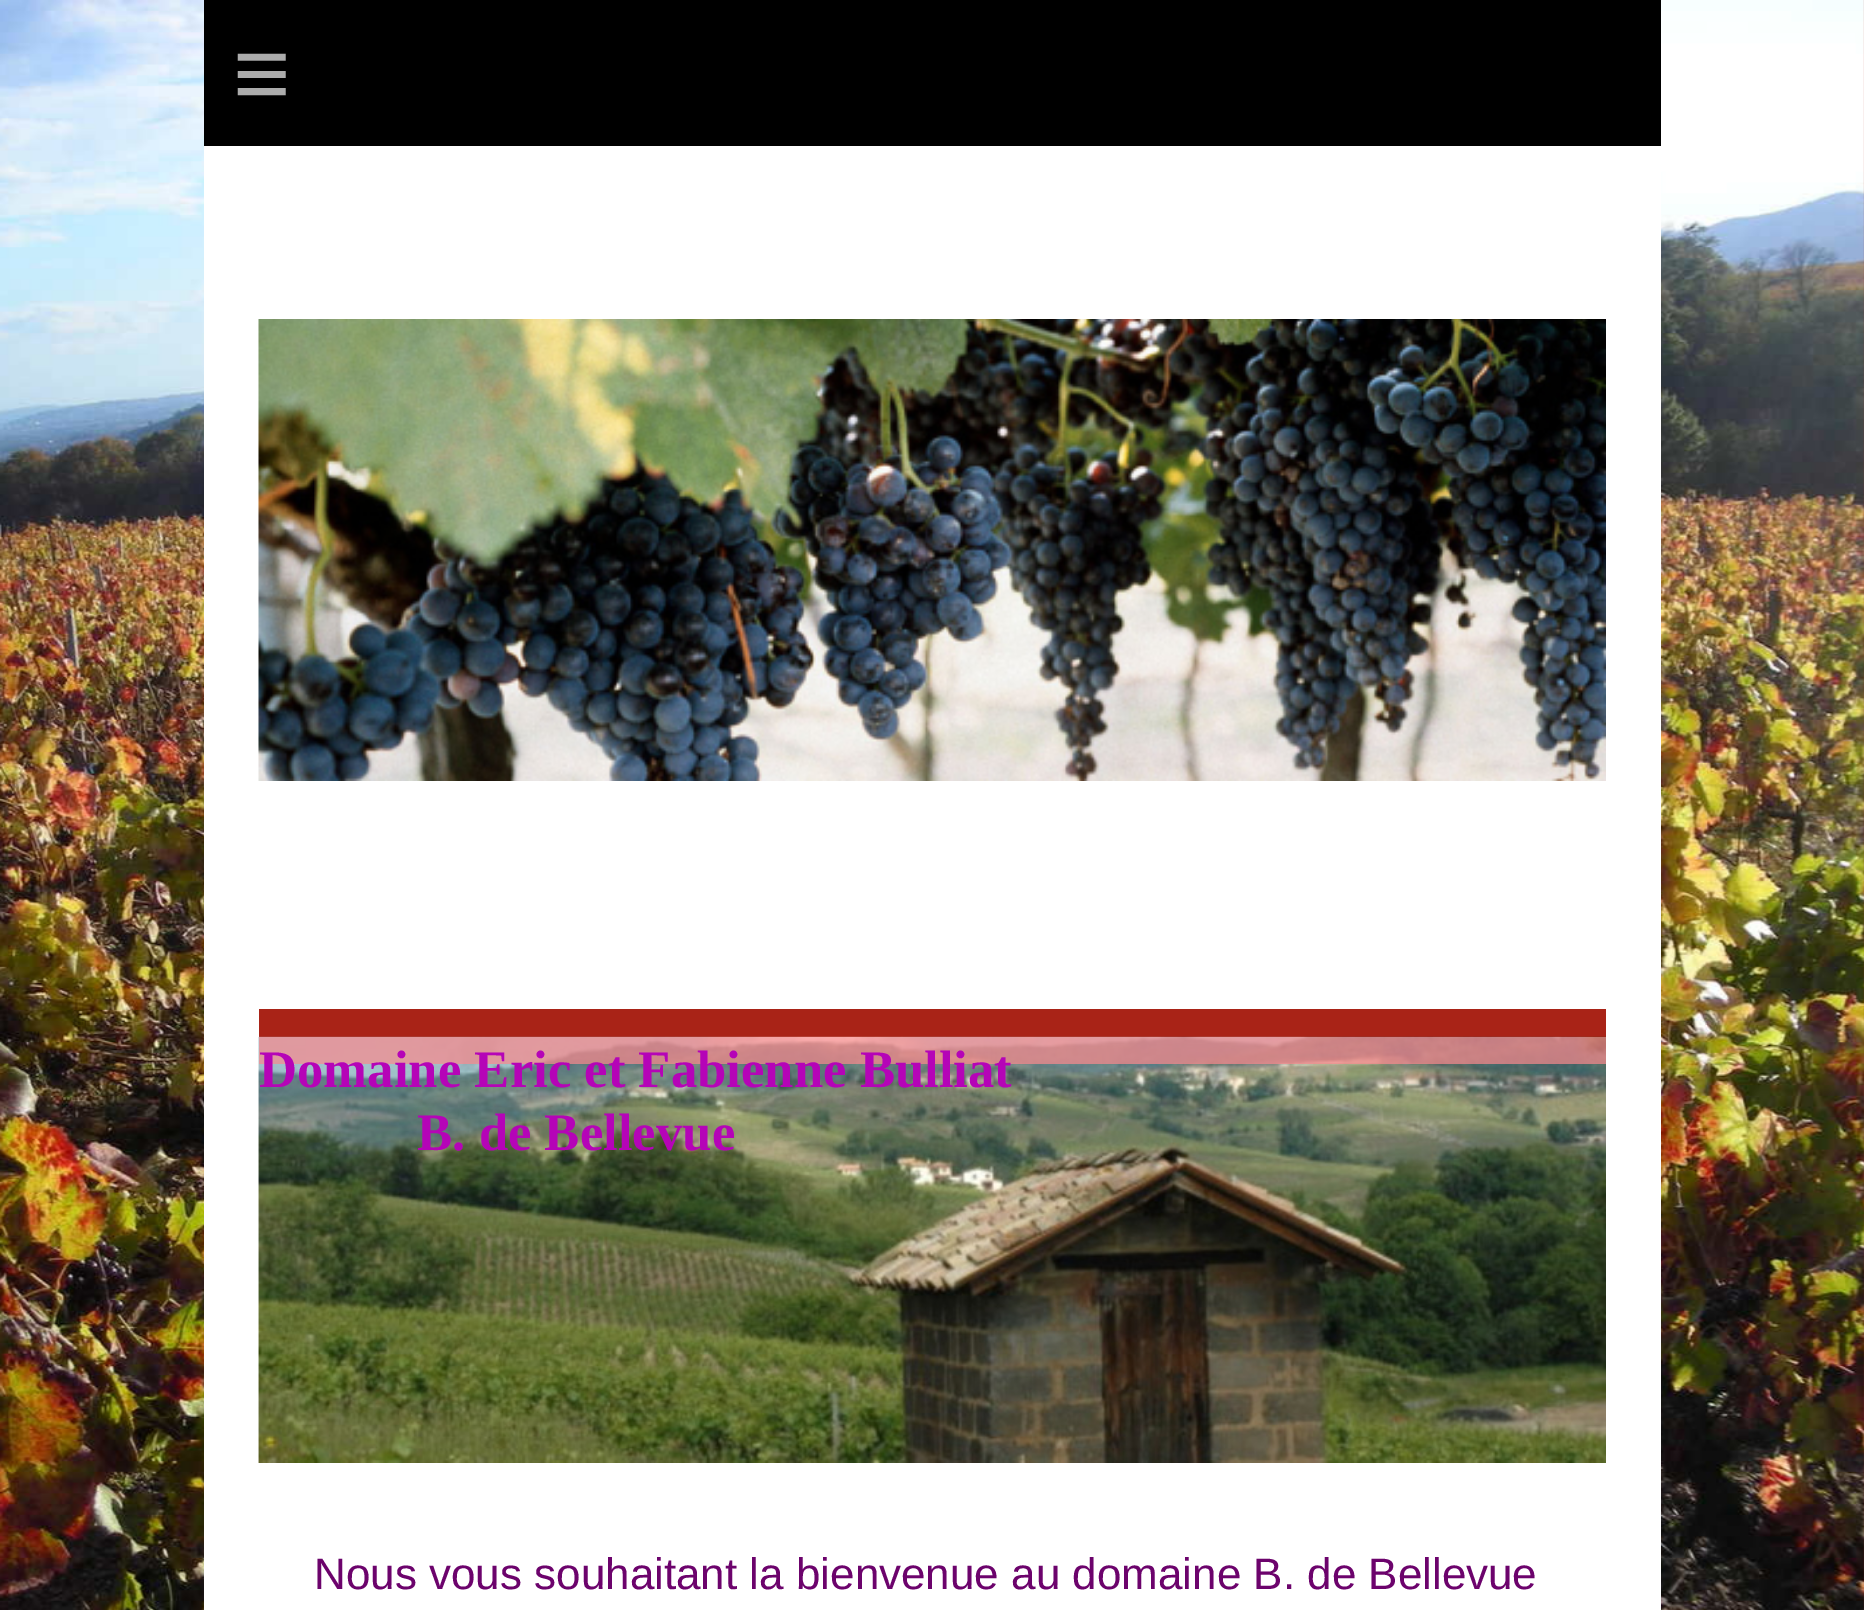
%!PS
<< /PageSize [1864 1610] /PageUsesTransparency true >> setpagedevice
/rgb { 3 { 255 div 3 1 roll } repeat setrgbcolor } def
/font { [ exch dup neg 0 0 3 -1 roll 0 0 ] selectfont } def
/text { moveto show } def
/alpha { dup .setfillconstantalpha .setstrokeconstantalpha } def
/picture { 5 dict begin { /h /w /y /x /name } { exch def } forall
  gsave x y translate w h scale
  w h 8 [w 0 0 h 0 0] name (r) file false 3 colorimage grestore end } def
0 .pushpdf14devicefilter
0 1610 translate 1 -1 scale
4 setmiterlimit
255 255 255 rgb
0 0 1864 1610 rectfill
(img_01.rgb) 0 0 1864 1610 picture
0 0 0 rgb
204 0 1457 146 rectfill
255 255 255 rgb
204 146 1457 1464 rectfill
(img_02.rgb) 258 319 1348 462 picture
169 35 23 rgb
259 1009 1347 28 rectfill
(img_03.rgb) 258 1036 1348 427 picture
(img_04.rgb) 258 1036 1348 427 picture
0.71 alpha
250 137 141 rgb
259 1037 1347 27 rectfill
/LiberationSans-Regular 99 font
1 alpha
172 172 172 rgb
233 107 moveto 29 0 (≡) ashow
/LiberationSerif-Bold 52.75 font
181 4 183 rgb
(Domaine Eric et Fabienne Bulliat) 259 1087 text
(B. de Bellevue) 417 1150 text
/LiberationSans-Regular 44 font
108 3 108 rgb
(Nous vous souhaitant la bienvenue au domaine B. de Bellevue) 314 1589 text
.poppdf14devicefilter showpage
